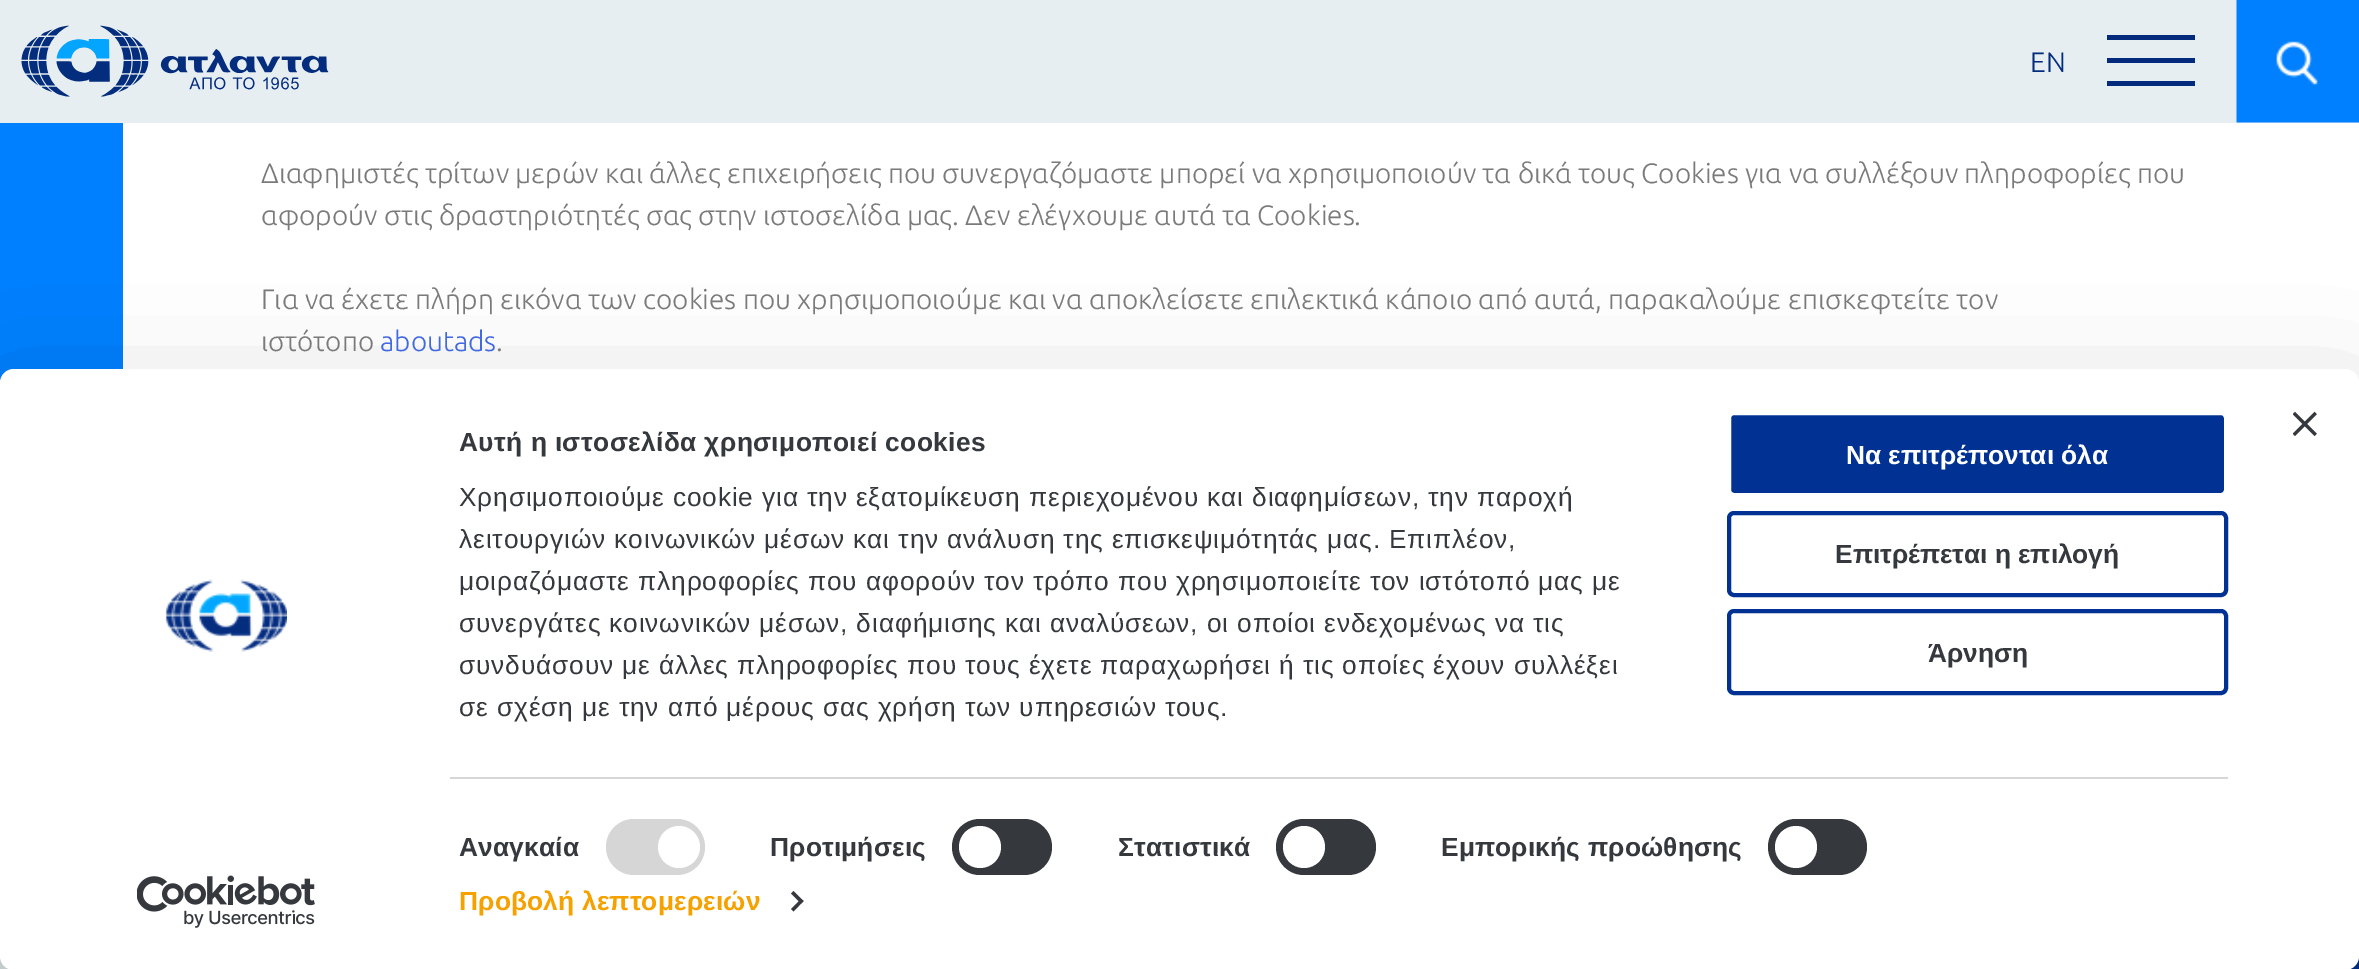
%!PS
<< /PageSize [2359 969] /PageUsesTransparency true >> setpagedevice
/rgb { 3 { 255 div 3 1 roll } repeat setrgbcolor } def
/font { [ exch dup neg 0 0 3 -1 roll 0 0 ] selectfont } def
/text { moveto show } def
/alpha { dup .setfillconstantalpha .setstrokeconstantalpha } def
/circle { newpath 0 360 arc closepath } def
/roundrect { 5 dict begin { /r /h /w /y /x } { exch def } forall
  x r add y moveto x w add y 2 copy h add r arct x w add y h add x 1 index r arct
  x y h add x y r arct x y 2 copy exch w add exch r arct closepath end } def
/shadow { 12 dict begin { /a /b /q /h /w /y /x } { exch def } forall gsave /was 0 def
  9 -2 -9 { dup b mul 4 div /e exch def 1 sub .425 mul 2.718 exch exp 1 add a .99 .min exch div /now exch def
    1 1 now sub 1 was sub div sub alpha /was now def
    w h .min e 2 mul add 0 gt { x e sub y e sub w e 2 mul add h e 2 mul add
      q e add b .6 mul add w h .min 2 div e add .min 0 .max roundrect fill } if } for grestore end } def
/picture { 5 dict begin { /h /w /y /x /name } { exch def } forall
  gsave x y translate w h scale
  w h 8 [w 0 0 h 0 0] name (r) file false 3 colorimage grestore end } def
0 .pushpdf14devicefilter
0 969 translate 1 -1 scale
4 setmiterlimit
255 255 255 rgb
0 0 2359 969 rectfill
230 238 242 rgb
0 0 2359 123 rectfill
(img_01.rgb) 21 25 308 72 picture
2 43 125 rgb
2107 35 88 5 rectfill
2107 58 88 5 rectfill
2107 81 88 5 rectfill
(img_02.rgb) 2236 0 123 123 picture
0 127 254 rgb
0 123 123 260 rectfill
230 238 242 rgb
0 956 9 13 rectfill
0 49 147 rgb
2350 956 9 13 rectfill
0 0 0 rgb
0 422 2359 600 14 61 0.3 shadow
255 255 255 rgb
0 369 2359 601 14 roundrect fill
(img_03.rgb) 2293 411 24 25 picture
214 214 214 rgb
450 777 1778 2 rectfill
606 819 99 56 28 roundrect fill
255 255 255 rgb
679 847 21 circle fill
53 57 62 rgb
952 819 100 56 28 roundrect fill
255 255 255 rgb
980 847 21 circle fill
53 57 62 rgb
1276 819 100 56 28 roundrect fill
255 255 255 rgb
1304 847 21 circle fill
53 57 62 rgb
1768 819 99 56 28 roundrect fill
255 255 255 rgb
1796 847 21 circle fill
53 57 62 rgb
793.5 891 moveto 10 10 rlineto -2.5 2.5 rlineto -10 -10 rlineto closepath fill
801 899 moveto 2.5 2 rlineto -10 10.5 rlineto -2.5 -2.5 rlineto closepath fill
0 49 147 rgb
1729 413 497 82 5 roundrect gsave fill grestore
255 255 255 rgb
4 setlinewidth
stroke
0 49 147 rgb
1729 513 497 82 5 roundrect stroke
1729 611 497 82 5 roundrect stroke
(img_04.rgb) 165 579 122 73 picture
(img_05.rgb) 137 875 178 53 picture
/Ubuntu-Light 28 font
2 43 125 rgb
(EN) 2030 72 text
122 122 122 rgb
(Διαφημιστές τρίτων μερών και άλλες επιχειρήσεις που συνεργαζόμαστε μπορεί να χρησιμοποιούν τα δικά τους Cookies για να συλλέξουν πληροφορίες που) 261 183 text
(αφορούν στις δραστηριότητές σας στην ιστοσελίδα μας. Δεν ελέγχουμε αυτά τα Cookies.) 261 225 text
(Για να έχετε πλήρη εικόνα των cookies που χρησιμοποιούμε και να αποκλείσετε επιλεκτικά κάποιο από αυτά, παρακαλούμε επισκεφτείτε τον) 261 309 text
(ιστότοπο) 261 351 text
65 105 225 rgb
(aboutads) 380 351 text
122 122 122 rgb
(.) 496 351 text
/LiberationSans-Bold 26.25 font
53 57 62 rgb
459 451 moveto 0.45 0 (Αυτή η ιστοσελίδα χρησιμοποιεί cookies) ashow
/LiberationSans-Regular 26.25 font
459 506 moveto 0.88 0 (Χρησιμοποιούμε cookie για την εξατομίκευση περιεχομένου και διαφημίσεων, την παροχή) ashow
459 548 moveto 0.88 0 (λειτουργιών κοινωνικών μέσων και την ανάλυση της επισκεψιμότητάς μας. Επιπλέον,) ashow
459 590 moveto 0.88 0 (μοιραζόμαστε πληροφορίες που αφορούν τον τρόπο που χρησιμοποιείτε τον ιστότοπό μας με) ashow
459 632 moveto 0.88 0 (συνεργάτες κοινωνικών μέσων, διαφήμισης και αναλύσεων, οι οποίοι ενδεχομένως να τις) ashow
459 674 moveto 0.88 0 (συνδυάσουν με άλλες πληροφορίες που τους έχετε παραχωρήσει ή τις οποίες έχουν συλλέξει) ashow
459 716 moveto 0.88 0 (σε σχέση με την από μέρους σας χρήση των υπηρεσιών τους.) ashow
/LiberationSans-Bold 26.25 font
459 856 moveto 0.2 0 (Αναγκαία) ashow
770 856 moveto 0.2 0 (Προτιμήσεις) ashow
1118 856 moveto 0.2 0 (Στατιστικά) ashow
1441 856 moveto 0.2 0 (Εμπορικής προώθησης) ashow
245 161 0 rgb
459 910 moveto 0.2 0 (Προβολή λεπτομερειών) ashow
255 255 255 rgb
(Να επιτρέπονται όλα) 1846 464 text
53 57 62 rgb
(Επιτρέπεται η επιλογή) 1835 563 text
(Άρνηση) 1928 662 text
.poppdf14devicefilter showpage
